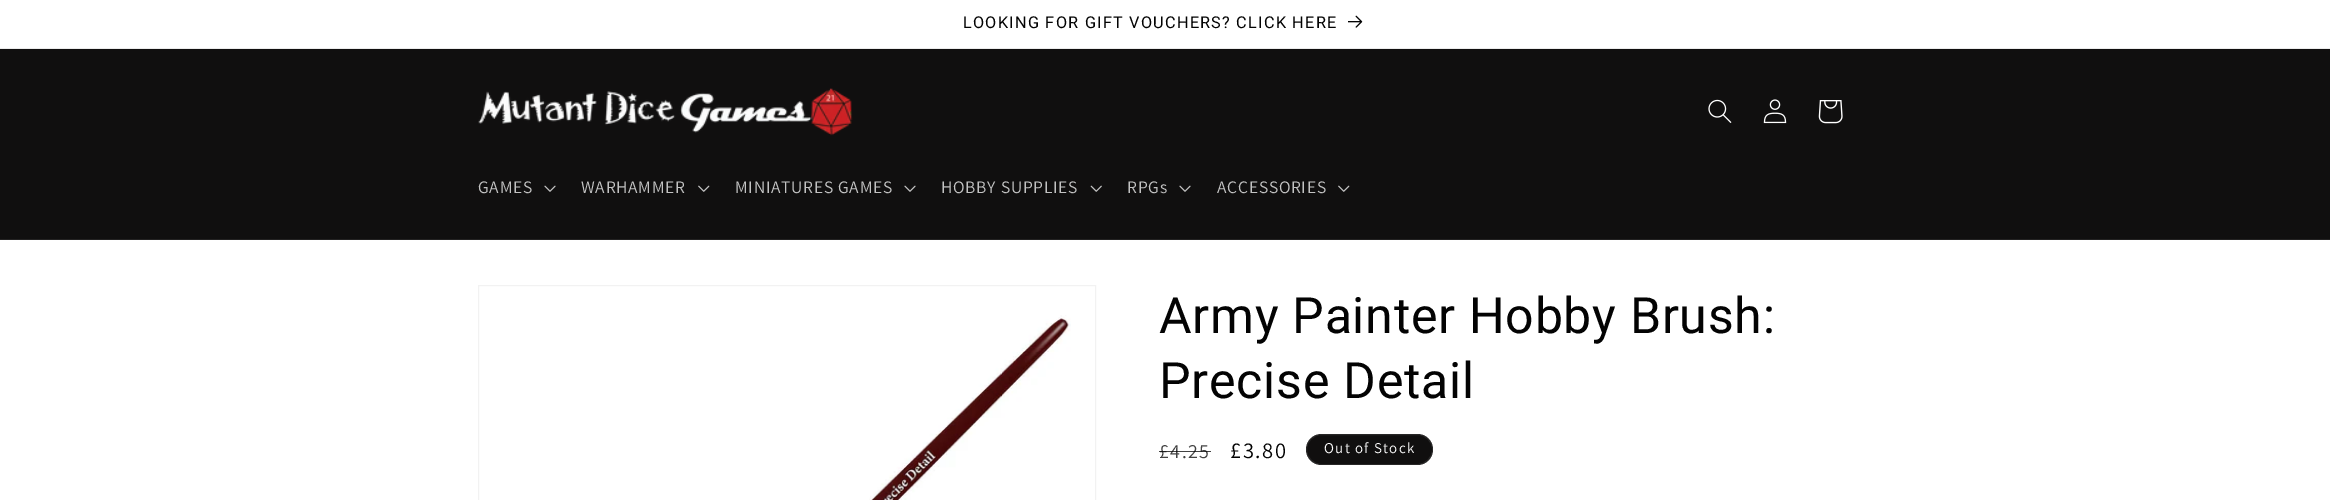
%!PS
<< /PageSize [2330 500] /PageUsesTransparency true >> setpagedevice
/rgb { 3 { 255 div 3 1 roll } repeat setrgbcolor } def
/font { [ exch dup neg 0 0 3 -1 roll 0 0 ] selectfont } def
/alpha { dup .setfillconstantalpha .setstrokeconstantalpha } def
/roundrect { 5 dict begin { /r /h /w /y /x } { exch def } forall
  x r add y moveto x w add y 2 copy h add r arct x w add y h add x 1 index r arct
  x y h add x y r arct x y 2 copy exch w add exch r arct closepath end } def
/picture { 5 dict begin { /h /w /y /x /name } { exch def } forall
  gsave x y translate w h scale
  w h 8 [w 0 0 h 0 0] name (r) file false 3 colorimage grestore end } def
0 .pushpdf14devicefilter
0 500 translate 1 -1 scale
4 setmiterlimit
255 255 255 rgb
0 0 2330 500 rectfill
235 235 235 rgb
0 48 2330 1 rectfill
(img_01.rgb) 1348 15 15 13 picture
16 15 15 rgb
0 49 2330 190 rectfill
35 34 34 rgb
0 239 2330 1 rectfill
(img_02.rgb) 478 88 375 48 picture
(img_03.rgb) 1708 99 24 24 picture
(img_04.rgb) 1763 99 24 25 picture
(img_05.rgb) 1818 100 25 24 picture
(img_06.rgb) 544 185 12 7 picture
(img_07.rgb) 698 185 12 7 picture
(img_06.rgb) 904 185 12 7 picture
(img_08.rgb) 1090 185 12 7 picture
(img_06.rgb) 1179 185 12 7 picture
(img_07.rgb) 1338 185 12 7 picture
242 242 242 rgb
478.5 285.5 617 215 rectstroke
(img_09.rgb) 869 315 202 185 picture
16 15 15 rgb
1306 434 127 31 15.5 roundrect fill
0.1 alpha
255 255 255 rgb
1306.5 434.5 126 30 15 roundrect stroke
/Roboto-Regular 16.25 font
1 alpha
3 3 3 rgb
963 28 moveto 1.25 0 (LOOKING FOR GIFT VOUCHERS? CLICK HERE) ashow
/Assistant-Regular 17.5 font
195 195 195 rgb
478 193 moveto 0.75 0 (GAMES) ashow
581 193 moveto 0.75 0 (WARHAMMER) ashow
735 193 moveto 0.75 0 (MINIATURES GAMES) ashow
941 193 moveto 0.75 0 (HOBBY SUPPLIES) ashow
1127 193 moveto 0.75 0 (RPGs) ashow
1217 193 moveto 0.75 0 (ACCESSORIES) ashow
/Roboto-Regular 50 font
3 3 3 rgb
1159 333 moveto 0.75 0 (Army Painter Hobby Brush:) ashow
1159 398 moveto 0.75 0 (Precise Detail) ashow
/Assistant-Regular 20 font
66 66 66 rgb
1159 458 moveto 1.5 0 (£4.25) ashow
0.75 alpha
3 3 3 rgb
1159 451 52 1 rectfill
/Assistant-Regular 22.5 font
1 alpha
1230 458 moveto 1.5 0 (£3.80) ashow
/Assistant-Regular 15 font
255 255 255 rgb
1324 453 moveto 1.25 0 (Out of Stock) ashow
.poppdf14devicefilter showpage
